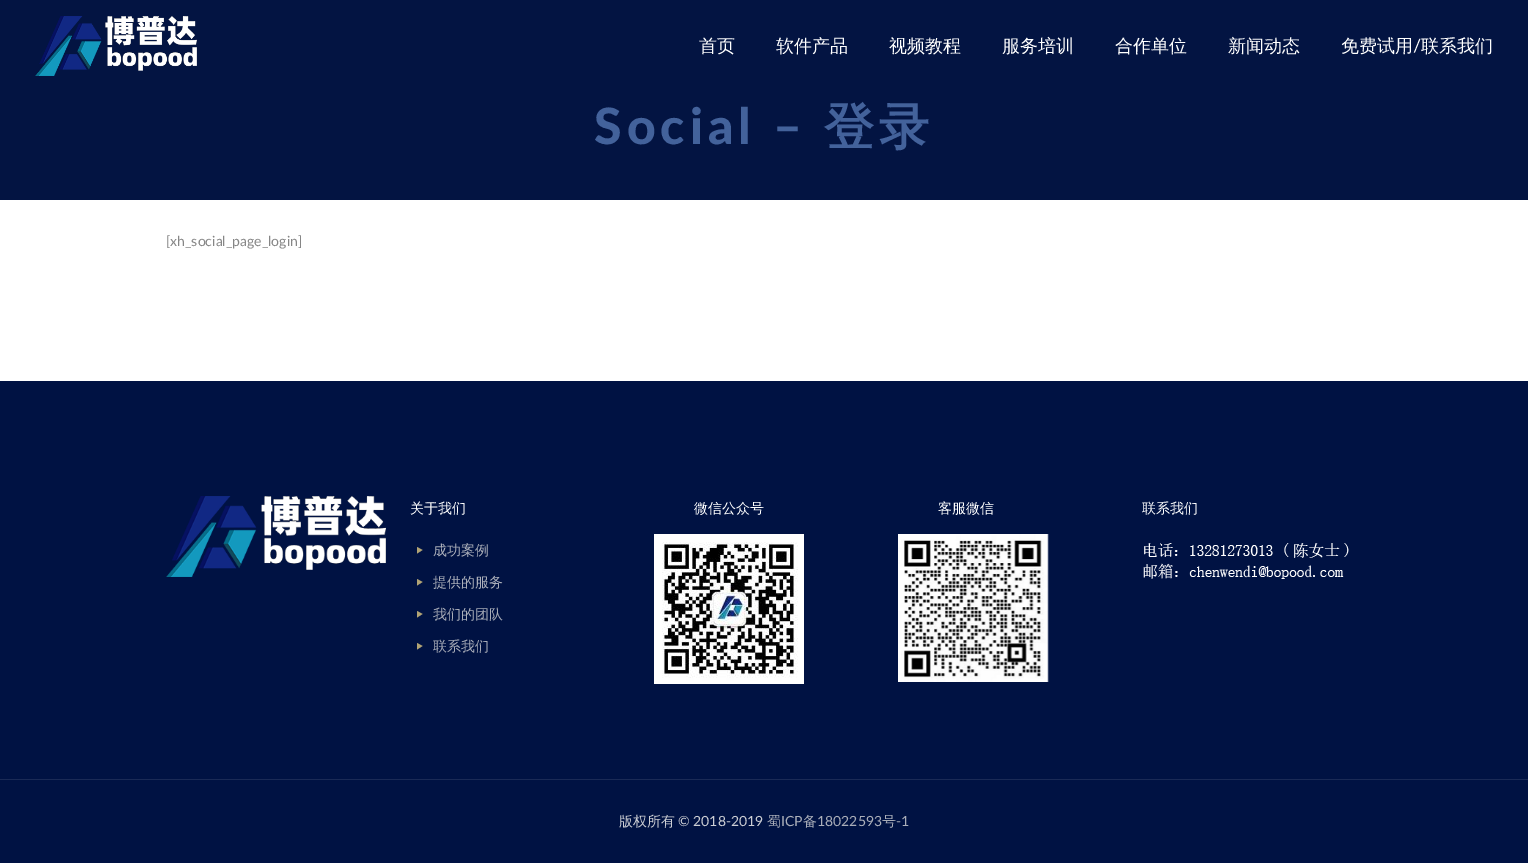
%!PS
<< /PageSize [1528 863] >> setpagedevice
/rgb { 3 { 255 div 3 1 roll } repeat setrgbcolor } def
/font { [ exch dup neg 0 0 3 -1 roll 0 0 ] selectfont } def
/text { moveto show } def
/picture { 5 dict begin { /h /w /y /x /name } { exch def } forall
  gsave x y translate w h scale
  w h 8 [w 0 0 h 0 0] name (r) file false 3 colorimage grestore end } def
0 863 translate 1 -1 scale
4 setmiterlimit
255 255 255 rgb
0 0 1528 863 rectfill
3 20 66 rgb
0 0 1528 200 rectfill
(img_01.rgb) 35 16 162 60 picture
0 18 67 rgb
0 381 1528 482 rectfill
(img_02.rgb) 166 496 220 81 picture
178 164 117 rgb
417 547 moveto 5.5 3 rlineto -5.5 3.5 rlineto closepath fill
417 579 moveto 5.5 3 rlineto -5.5 3.5 rlineto closepath fill
417 611 moveto 5.5 3 rlineto -5.5 3.5 rlineto closepath fill
417 643 moveto 5.5 3 rlineto -5.5 3.5 rlineto closepath fill
(img_03.rgb) 654 534 150 150 picture
(img_04.rgb) 898 534 151 148 picture
(img_05.rgb) 1143 543 206 36 picture
26 42 86 rgb
0 779 1528 1 rectfill
/WenQuanYiZenHei-Medium 18 font
255 255 255 rgb
(首页) 699 52 text
(软件产品) 776 52 text
(视频教程) 889 52 text
(服务培训) 1002 52 text
(合作单位) 1115 52 text
(新闻动态) 1228 52 text
(免费试用) 1341 52 text
/Lato-Regular 18 font
(/) 1413 52 text
/WenQuanYiZenHei-Medium 18 font
(联系我们) 1421 52 text
/Lato-Black 50 font
67 98 155 rgb
594 144 moveto 5 0 (Social –) ashow
/WenQuanYiZenHei-Bold 50 font
824 144 moveto 5 0 (登录) ashow
/Lato-Regular 14 font
134 134 134 rgb
([xh_social_page_login]) 166 246 text
/WenQuanYiZenHei-Medium 14 font
255 255 255 rgb
(关于我们) 410 513 text
170 174 185 rgb
(成功案例) 433 555 text
(提供的服务) 433 587 text
(我们的团队) 433 619 text
(联系我们) 433 651 text
255 255 255 rgb
(微信公众号) 694 513 text
(客服微信) 938 513 text
(联系我们) 1142 513 text
204 206 212 rgb
(版权所有) 619 826 text
/Lato-Regular 14 font
(© 2018-2019) 678 826 text
/WenQuanYiZenHei-Medium 14 font
170 174 185 rgb
(蜀) 767 826 text
/Lato-Regular 14 font
(ICP) 781 826 text
/WenQuanYiZenHei-Medium 14 font
(备) 803 826 text
/Lato-Regular 14 font
(18022593) 817 826 text
/WenQuanYiZenHei-Medium 14 font
(号) 882 826 text
/Lato-Regular 14 font
(-1) 896 826 text
showpage
